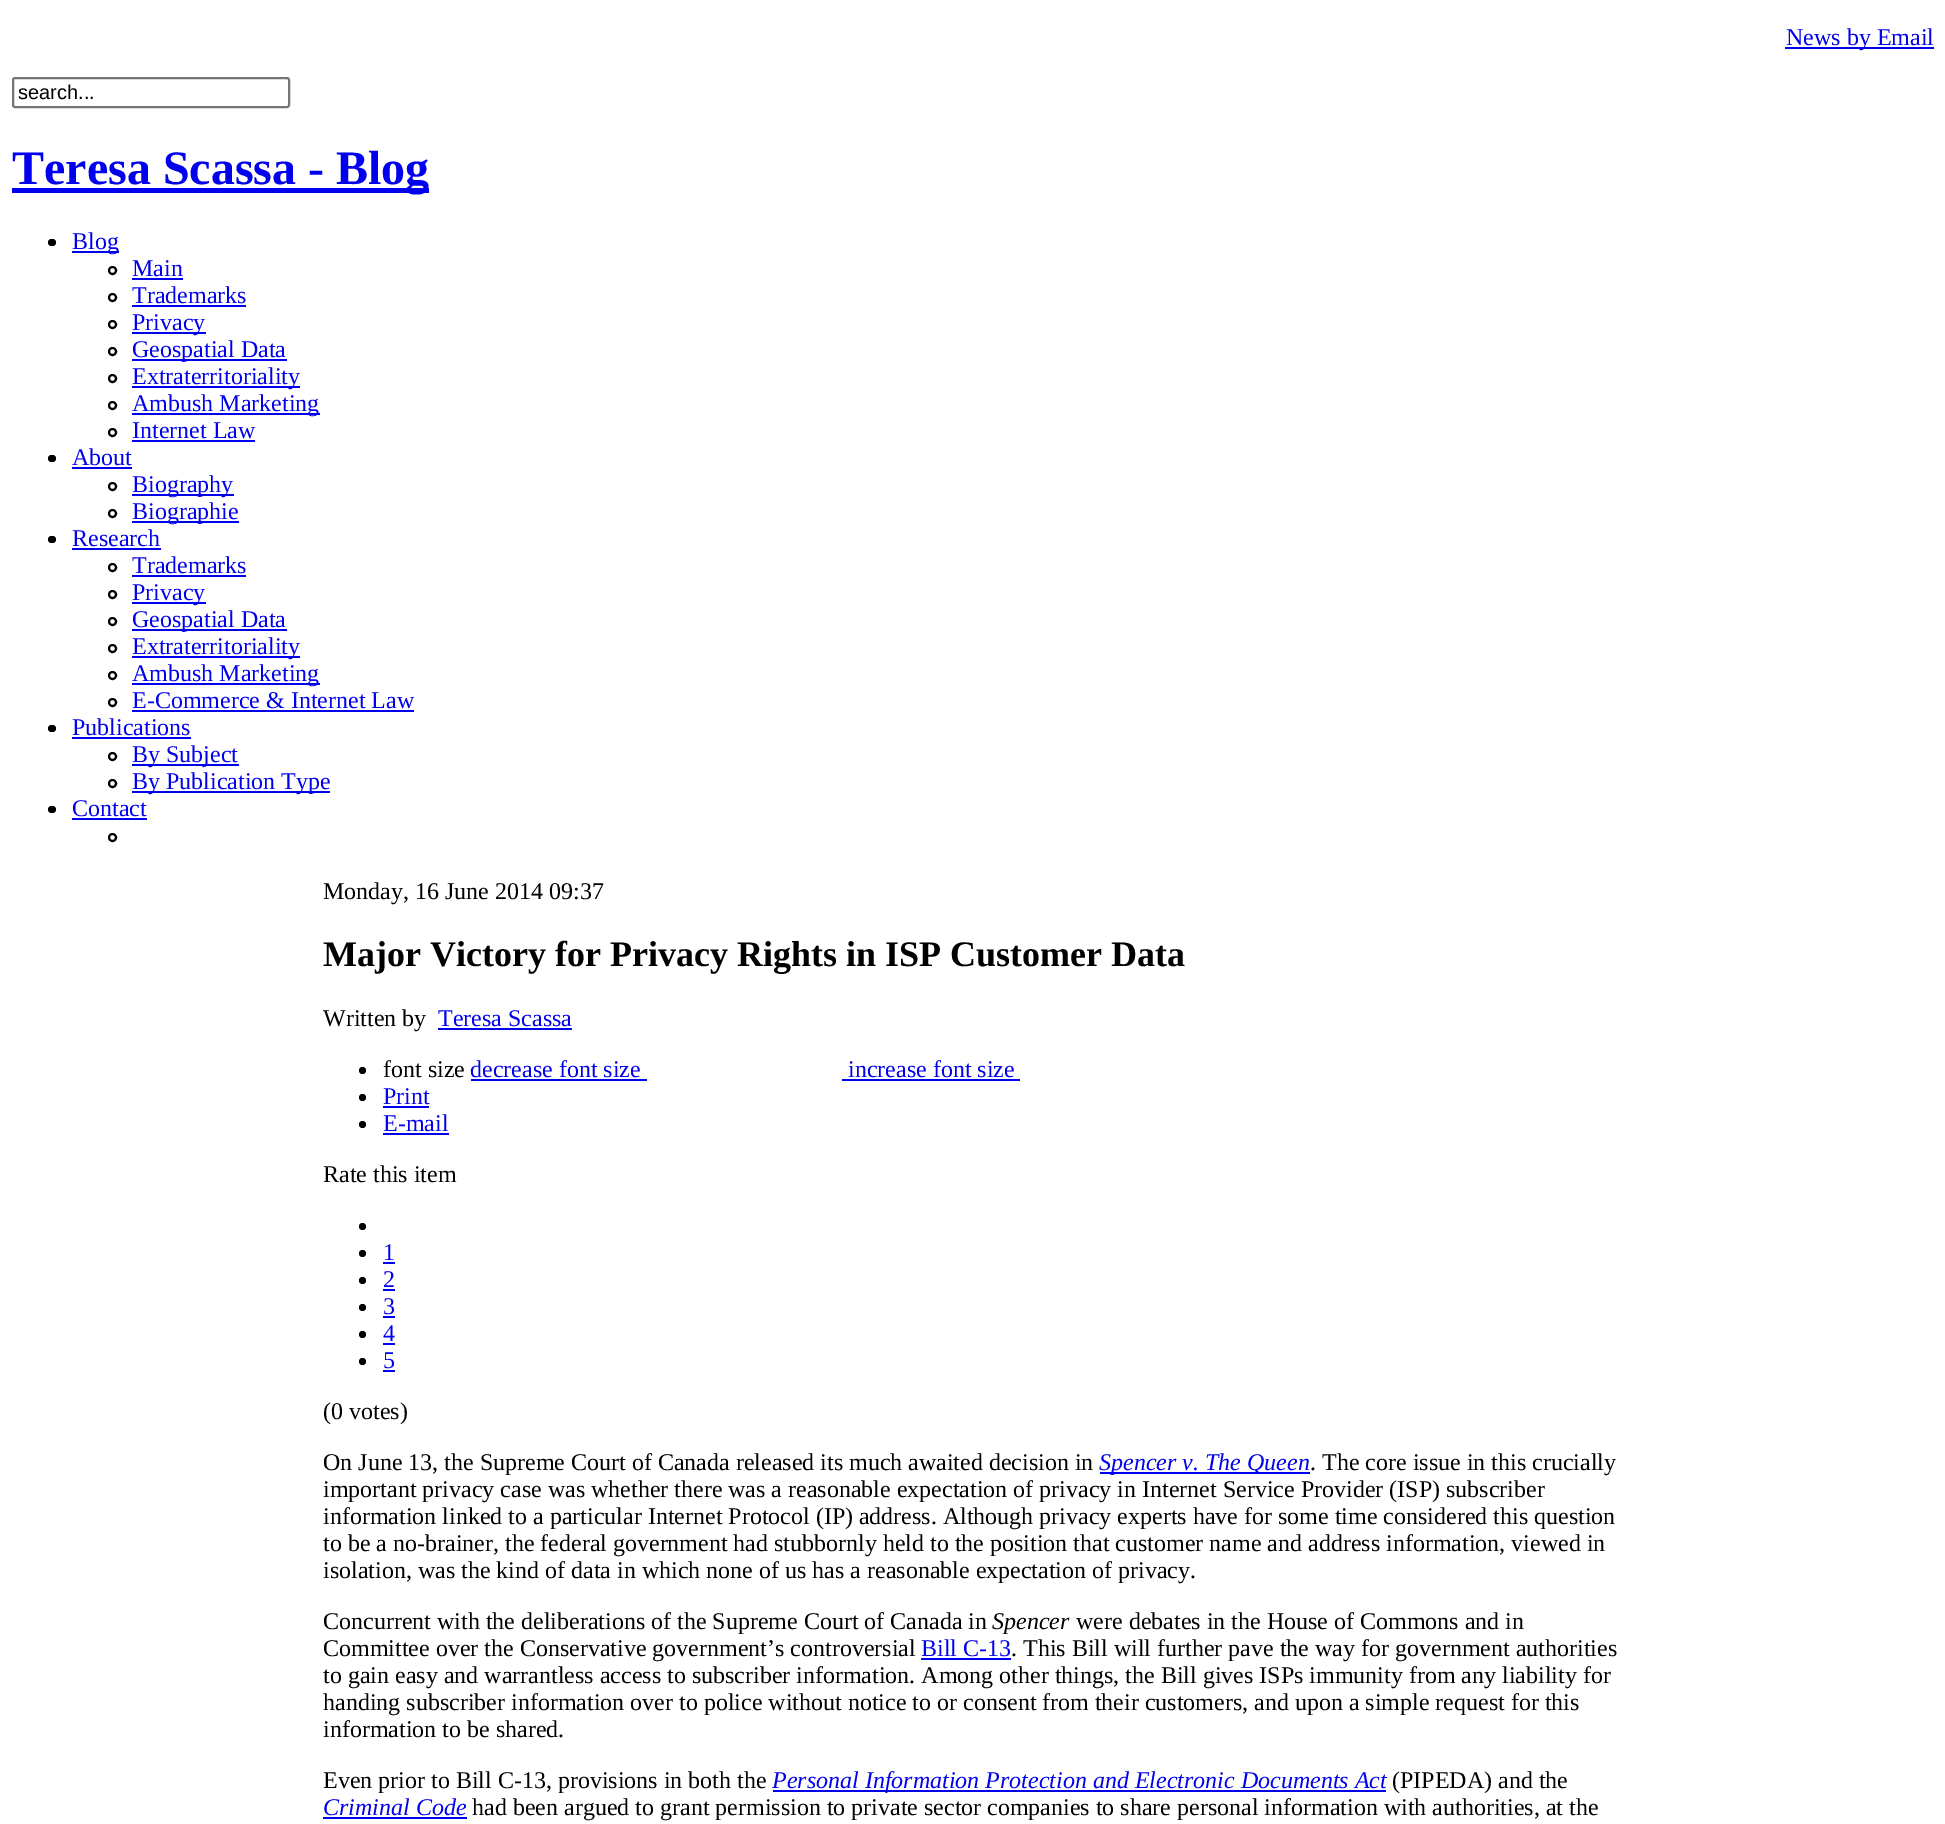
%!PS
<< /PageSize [1945 1824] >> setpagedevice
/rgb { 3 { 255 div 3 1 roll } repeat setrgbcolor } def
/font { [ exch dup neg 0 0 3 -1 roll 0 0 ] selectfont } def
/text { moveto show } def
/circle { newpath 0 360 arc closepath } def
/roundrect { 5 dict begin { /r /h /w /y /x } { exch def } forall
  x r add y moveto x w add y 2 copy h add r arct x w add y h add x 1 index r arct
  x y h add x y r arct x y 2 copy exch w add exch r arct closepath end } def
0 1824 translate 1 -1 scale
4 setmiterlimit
255 255 255 rgb
0 0 1945 1824 rectfill
0 0 238 rgb
1785 47 149 2 rectfill
118 118 118 rgb
2 setlinewidth
13 78 276 29 2 roundrect stroke
0 0 238 rgb
12 188 417 5 rectfill
0 0 0 rgb
48 239 8 7 3.5 roundrect fill
0 0 238 rgb
72 251 47 2 rectfill
0 0 0 rgb
112.5 270.5 3.5 circle stroke
0 0 238 rgb
132 278 51 2 rectfill
0 0 0 rgb
112.5 297.5 3.5 circle stroke
0 0 238 rgb
132 305 114 2 rectfill
0 0 0 rgb
112.5 324.5 3.5 circle stroke
0 0 238 rgb
132 332 74 2 rectfill
0 0 0 rgb
112.5 351.5 3.5 circle stroke
0 0 238 rgb
132 359 155 2 rectfill
0 0 0 rgb
112.5 378.5 3.5 circle stroke
0 0 238 rgb
132 386 168 2 rectfill
0 0 0 rgb
112.5 405.5 3.5 circle stroke
0 0 238 rgb
132 413 188 2 rectfill
0 0 0 rgb
112.5 432.5 3.5 circle stroke
0 0 238 rgb
132 440 123 2 rectfill
0 0 0 rgb
48 455 8 7 3.5 roundrect fill
0 0 238 rgb
72 467 60 2 rectfill
0 0 0 rgb
112.5 486.5 3.5 circle stroke
0 0 238 rgb
132 494 102 2 rectfill
0 0 0 rgb
112.5 513.5 3.5 circle stroke
0 0 238 rgb
132 521 107 2 rectfill
0 0 0 rgb
48 536 8 7 3.5 roundrect fill
0 0 238 rgb
72 548 89 2 rectfill
0 0 0 rgb
112.5 567.5 3.5 circle stroke
0 0 238 rgb
132 575 114 2 rectfill
0 0 0 rgb
112.5 594.5 3.5 circle stroke
0 0 238 rgb
132 602 74 2 rectfill
0 0 0 rgb
112.5 621.5 3.5 circle stroke
0 0 238 rgb
132 629 155 2 rectfill
0 0 0 rgb
112.5 648.5 3.5 circle stroke
0 0 238 rgb
132 656 168 2 rectfill
0 0 0 rgb
112.5 675.5 3.5 circle stroke
0 0 238 rgb
132 683 188 2 rectfill
0 0 0 rgb
112.5 702.5 3.5 circle stroke
0 0 238 rgb
132 710 282 2 rectfill
0 0 0 rgb
48 725 8 7 3.5 roundrect fill
0 0 238 rgb
72 737 119 2 rectfill
0 0 0 rgb
112.5 756.5 3.5 circle stroke
0 0 238 rgb
132 764 107 2 rectfill
0 0 0 rgb
112.5 783.5 3.5 circle stroke
0 0 238 rgb
132 791 198 2 rectfill
0 0 0 rgb
48 806 8 7 3.5 roundrect fill
0 0 238 rgb
72 818 75 2 rectfill
0 0 0 rgb
112.5 837.5 3.5 circle stroke
0 0 238 rgb
438 1028 134 2 rectfill
0 0 0 rgb
362.5 1070.5 3.5 circle fill
0 0 238 rgb
471 1079 176 2 rectfill
842 1079 178 2 rectfill
0 0 0 rgb
362.5 1097.5 3.5 circle fill
0 0 238 rgb
383 1106 46 2 rectfill
0 0 0 rgb
362.5 1124.5 3.5 circle fill
0 0 238 rgb
383 1133 66 2 rectfill
0 0 0 rgb
362.5 1226.5 3.5 circle fill
362.5 1253.5 3.5 circle fill
0 0 238 rgb
383 1262 12 2 rectfill
0 0 0 rgb
362.5 1280.5 3.5 circle fill
0 0 238 rgb
383 1289 12 2 rectfill
0 0 0 rgb
362.5 1307.5 3.5 circle fill
0 0 238 rgb
383 1316 12 2 rectfill
0 0 0 rgb
362.5 1334.5 3.5 circle fill
0 0 238 rgb
383 1343 12 2 rectfill
0 0 0 rgb
362.5 1361.5 3.5 circle fill
0 0 238 rgb
383 1370 12 2 rectfill
1100 1472 210 2 rectfill
921 1658 90 2 rectfill
773 1790 613 2 rectfill
323 1817 144 2 rectfill
/LiberationSerif-Regular 24 font
(News by Email) 1786 45 text
/LiberationSans-Regular 20 font
0 0 0 rgb
(search...) 18 99 text
/LiberationSerif-Bold 48 font
0 0 238 rgb
(Teresa Scassa - Blog) 12 184 text
/LiberationSerif-Regular 24 font
(Blog) 72 249 text
(Main) 132 276 text
(Trademarks) 132 303 text
(Privacy) 132 330 text
(Geospatial Data) 132 357 text
(Extraterritoriality) 132 384 text
(Ambush Marketing) 132 411 text
(Internet Law) 132 438 text
(About) 72 465 text
(Biography) 132 492 text
(Biographie) 132 519 text
(Research) 72 546 text
(Trademarks) 132 573 text
(Privacy) 132 600 text
(Geospatial Data) 132 627 text
(Extraterritoriality) 132 654 text
(Ambush Marketing) 132 681 text
(E-Commerce & Internet Law) 132 708 text
(Publications) 72 735 text
(By Subject) 132 762 text
(By Publication Type) 132 789 text
(Contact) 72 816 text
0 0 0 rgb
(Monday, 16 June 2014 09:37) 323 899 text
/LiberationSerif-Bold 36 font
(Major Victory for Privacy Rights in ISP Customer Data) 323 966 text
/LiberationSerif-Regular 24 font
(Written by) 323 1026 text
0 0 238 rgb
(Teresa Scassa) 438 1026 text
0 0 0 rgb
(font size) 383 1077 text
0 0 238 rgb
(decrease font size) 470 1077 text
(increase font size) 848 1077 text
(Print) 383 1104 text
(E-mail) 383 1131 text
0 0 0 rgb
(Rate this item) 323 1182 text
0 0 238 rgb
(1) 383 1260 text
(2) 383 1287 text
(3) 383 1314 text
(4) 383 1341 text
(5) 383 1368 text
0 0 0 rgb
(\(0 votes\)) 323 1419 text
(On June 13, the Supreme Court of Canada released its much awaited decision in) 323 1470 text
/LiberationSerif-Italic 24 font
0 0 238 rgb
(Spencer v. The Queen) 1099 1470 text
/LiberationSerif-Regular 24 font
0 0 0 rgb
(. The core issue in this crucially) 1310 1470 text
(important privacy case was whether there was a reasonable expectation of privacy in Internet Service Provider \(ISP\) subscriber) 323 1497 text
(information linked to a particular Internet Protocol \(IP\) address. Although privacy experts have for some time considered this question) 323 1524 text
(to be a no-brainer, the federal government had stubbornly held to the position that customer name and address information, viewed in) 323 1551 text
(isolation, was the kind of data in which none of us has a reasonable expectation of privacy.) 323 1578 text
(Concurrent with the deliberations of the Supreme Court of Canada in) 323 1629 text
/LiberationSerif-Italic 24 font
(Spencer) 992 1629 text
/LiberationSerif-Regular 24 font
(were debates in the House of Commons and in) 1076 1629 text
(Committee over the Conservative government’s controversial) 323 1656 text
0 0 238 rgb
(Bill C-13) 921 1656 text
0 0 0 rgb
(. This Bill will further pave the way for government authorities) 1011 1656 text
(to gain easy and warrantless access to subscriber information. Among other things, the Bill gives ISPs immunity from any liability for) 323 1683 text
(handing subscriber information over to police without notice to or consent from their customers, and upon a simple request for this) 323 1710 text
(information to be shared.) 323 1737 text
(Even prior to Bill C-13, provisions in both the) 323 1788 text
/LiberationSerif-Italic 24 font
0 0 238 rgb
(Personal Information Protection and Electronic Documents Act) 772 1788 text
/LiberationSerif-Regular 24 font
0 0 0 rgb
(\(PIPEDA\) and the) 1392 1788 text
/LiberationSerif-Italic 24 font
0 0 238 rgb
(Criminal Code) 323 1815 text
/LiberationSerif-Regular 24 font
0 0 0 rgb
(had been argued to grant permission to private sector companies to share personal information with authorities, at the) 472 1815 text
showpage
